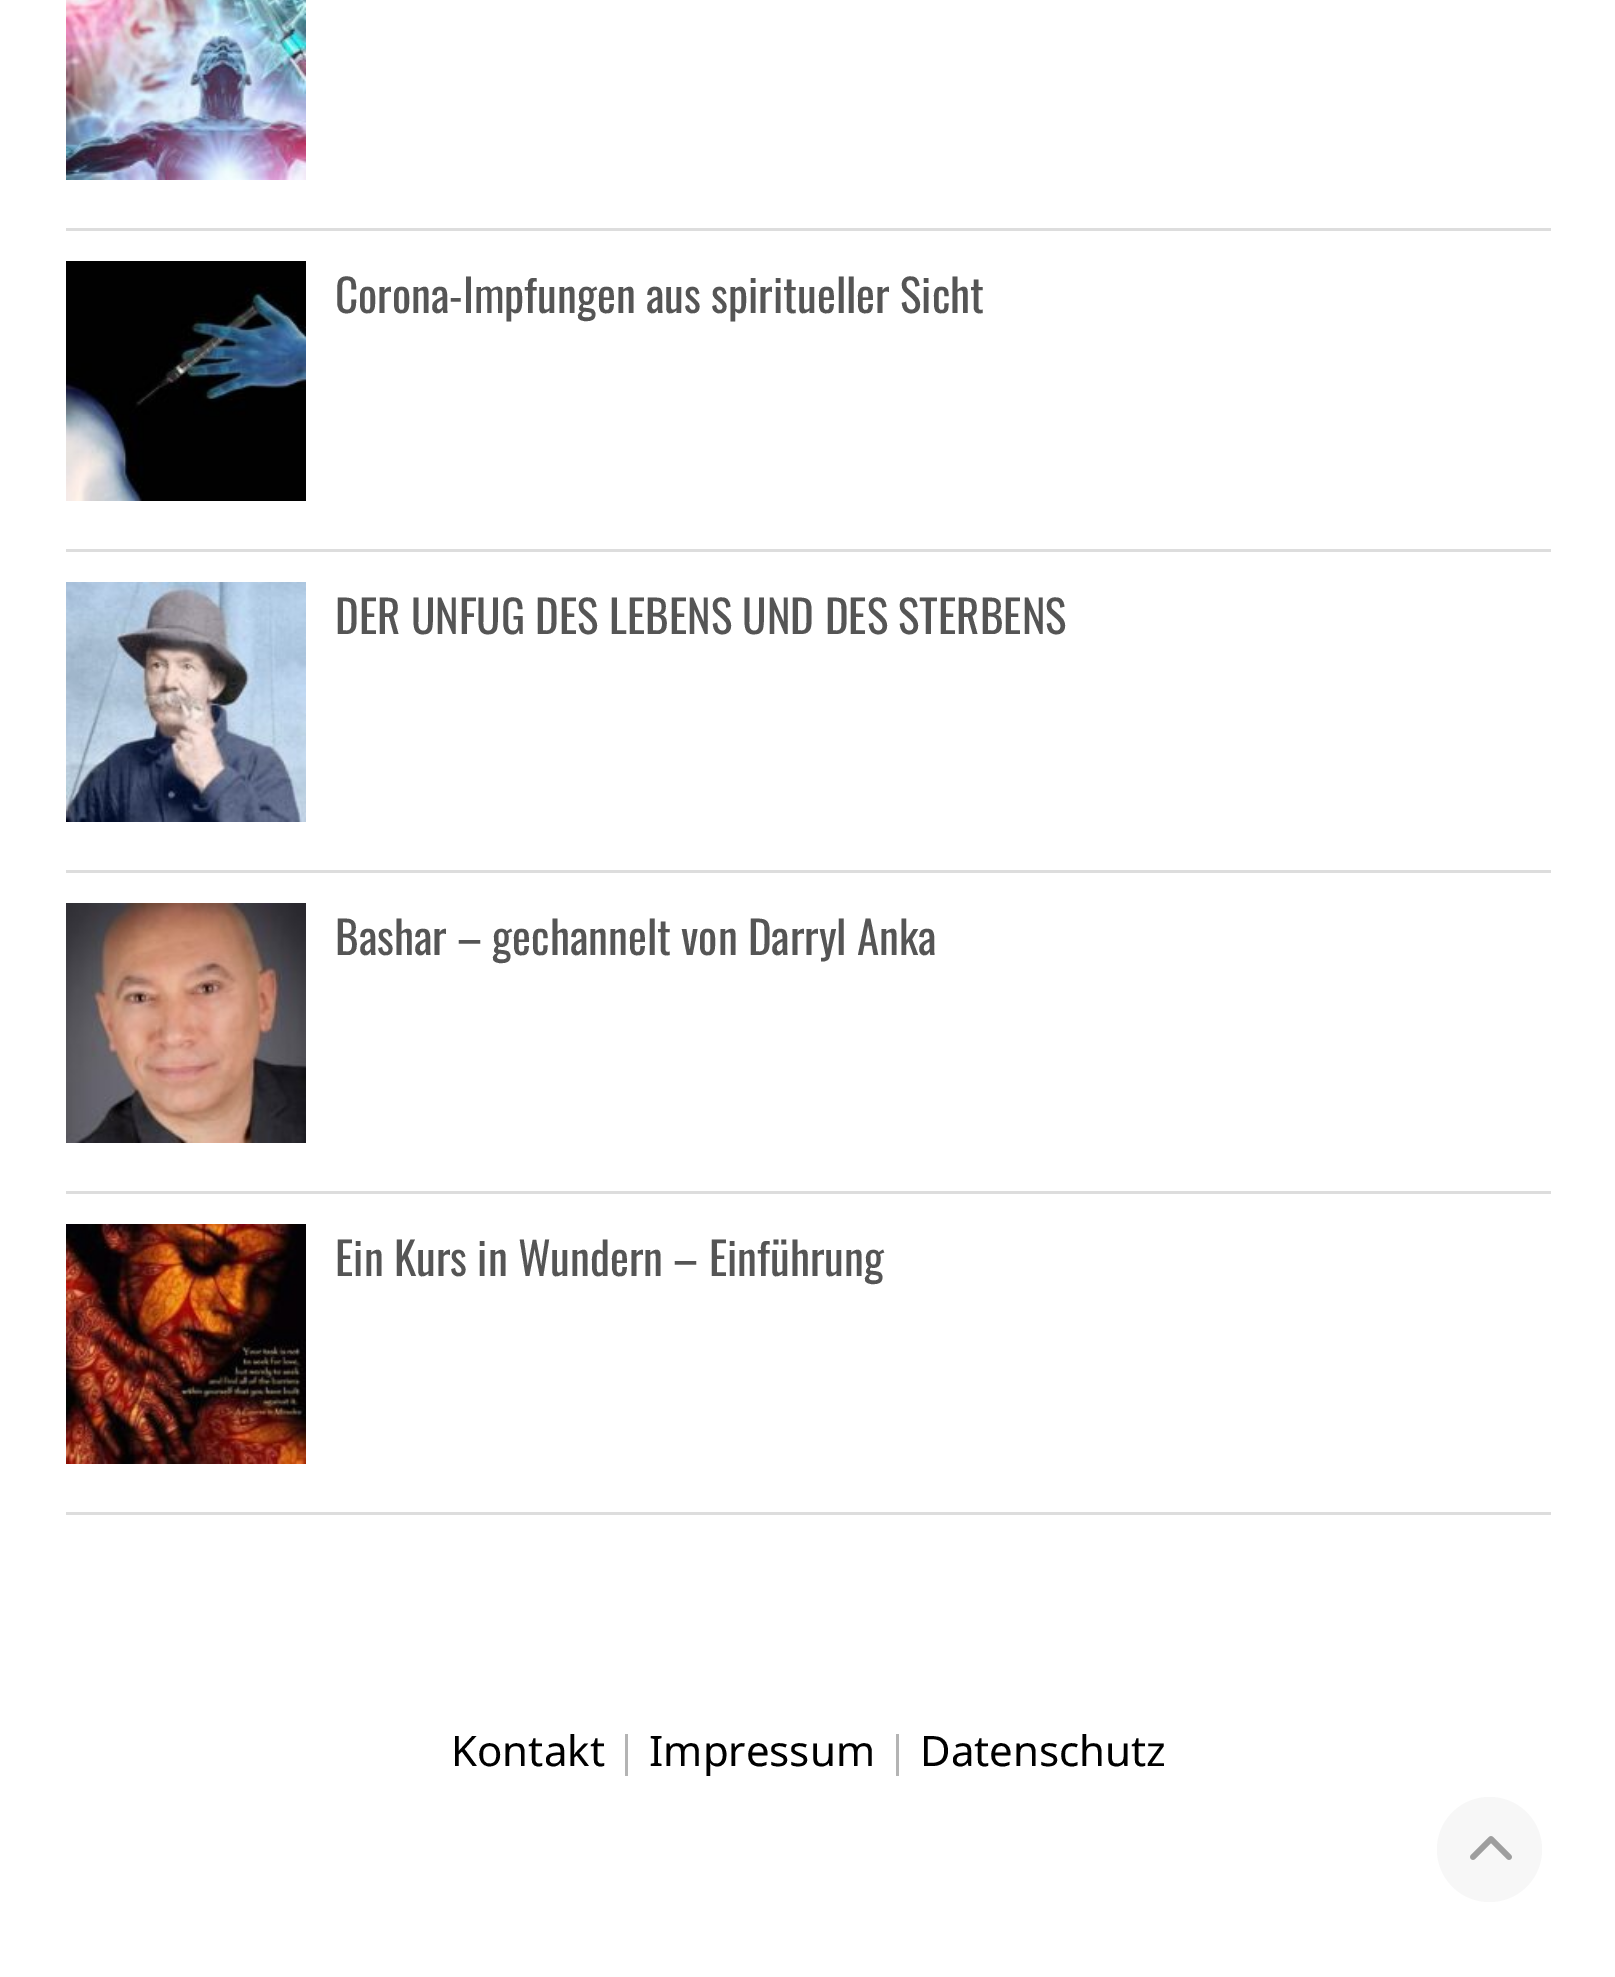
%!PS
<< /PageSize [1615 1977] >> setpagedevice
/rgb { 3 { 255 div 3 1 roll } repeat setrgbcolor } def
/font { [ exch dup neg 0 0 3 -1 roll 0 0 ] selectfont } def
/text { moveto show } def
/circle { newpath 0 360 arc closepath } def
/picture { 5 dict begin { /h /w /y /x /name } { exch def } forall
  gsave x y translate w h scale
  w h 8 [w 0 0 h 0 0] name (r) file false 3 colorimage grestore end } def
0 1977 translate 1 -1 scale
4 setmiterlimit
255 255 255 rgb
0 0 1615 1977 rectfill
221 221 221 rgb
66 228 1485 3 rectfill
(img_01.rgb) 66 0 240 180 picture
66 549 1485 3 rectfill
(img_02.rgb) 66 261 240 240 picture
66 870 1485 3 rectfill
(img_03.rgb) 66 582 240 240 picture
66 1191 1485 3 rectfill
(img_04.rgb) 66 903 240 240 picture
66 1512 1485 3 rectfill
(img_05.rgb) 66 1224 240 240 picture
247 247 247 rgb
1489.5 1849.5 52.5 circle fill
(img_06.rgb) 1470 1836 42 24 picture
/Oswald-Regular 45 font
85 85 85 rgb
(Corona-Impfungen aus spiritueller Sicht) 335 313 text
(DER UNFUG DES LEBENS UND DES STERBENS) 335 634 text
(Bashar – gechannelt von Darryl Anka) 335 955 text
(Ein Kurs in Wundern – Einführung) 335 1276 text
/NotoSans-Regular 42 font
0 0 0 rgb
(Kontakt) 451 1766 text
180 180 180 rgb
(|) 615 1766 text
0 0 0 rgb
(Impressum) 649 1766 text
180 180 180 rgb
(|) 886 1766 text
0 0 0 rgb
(Datenschutz) 920 1766 text
showpage
